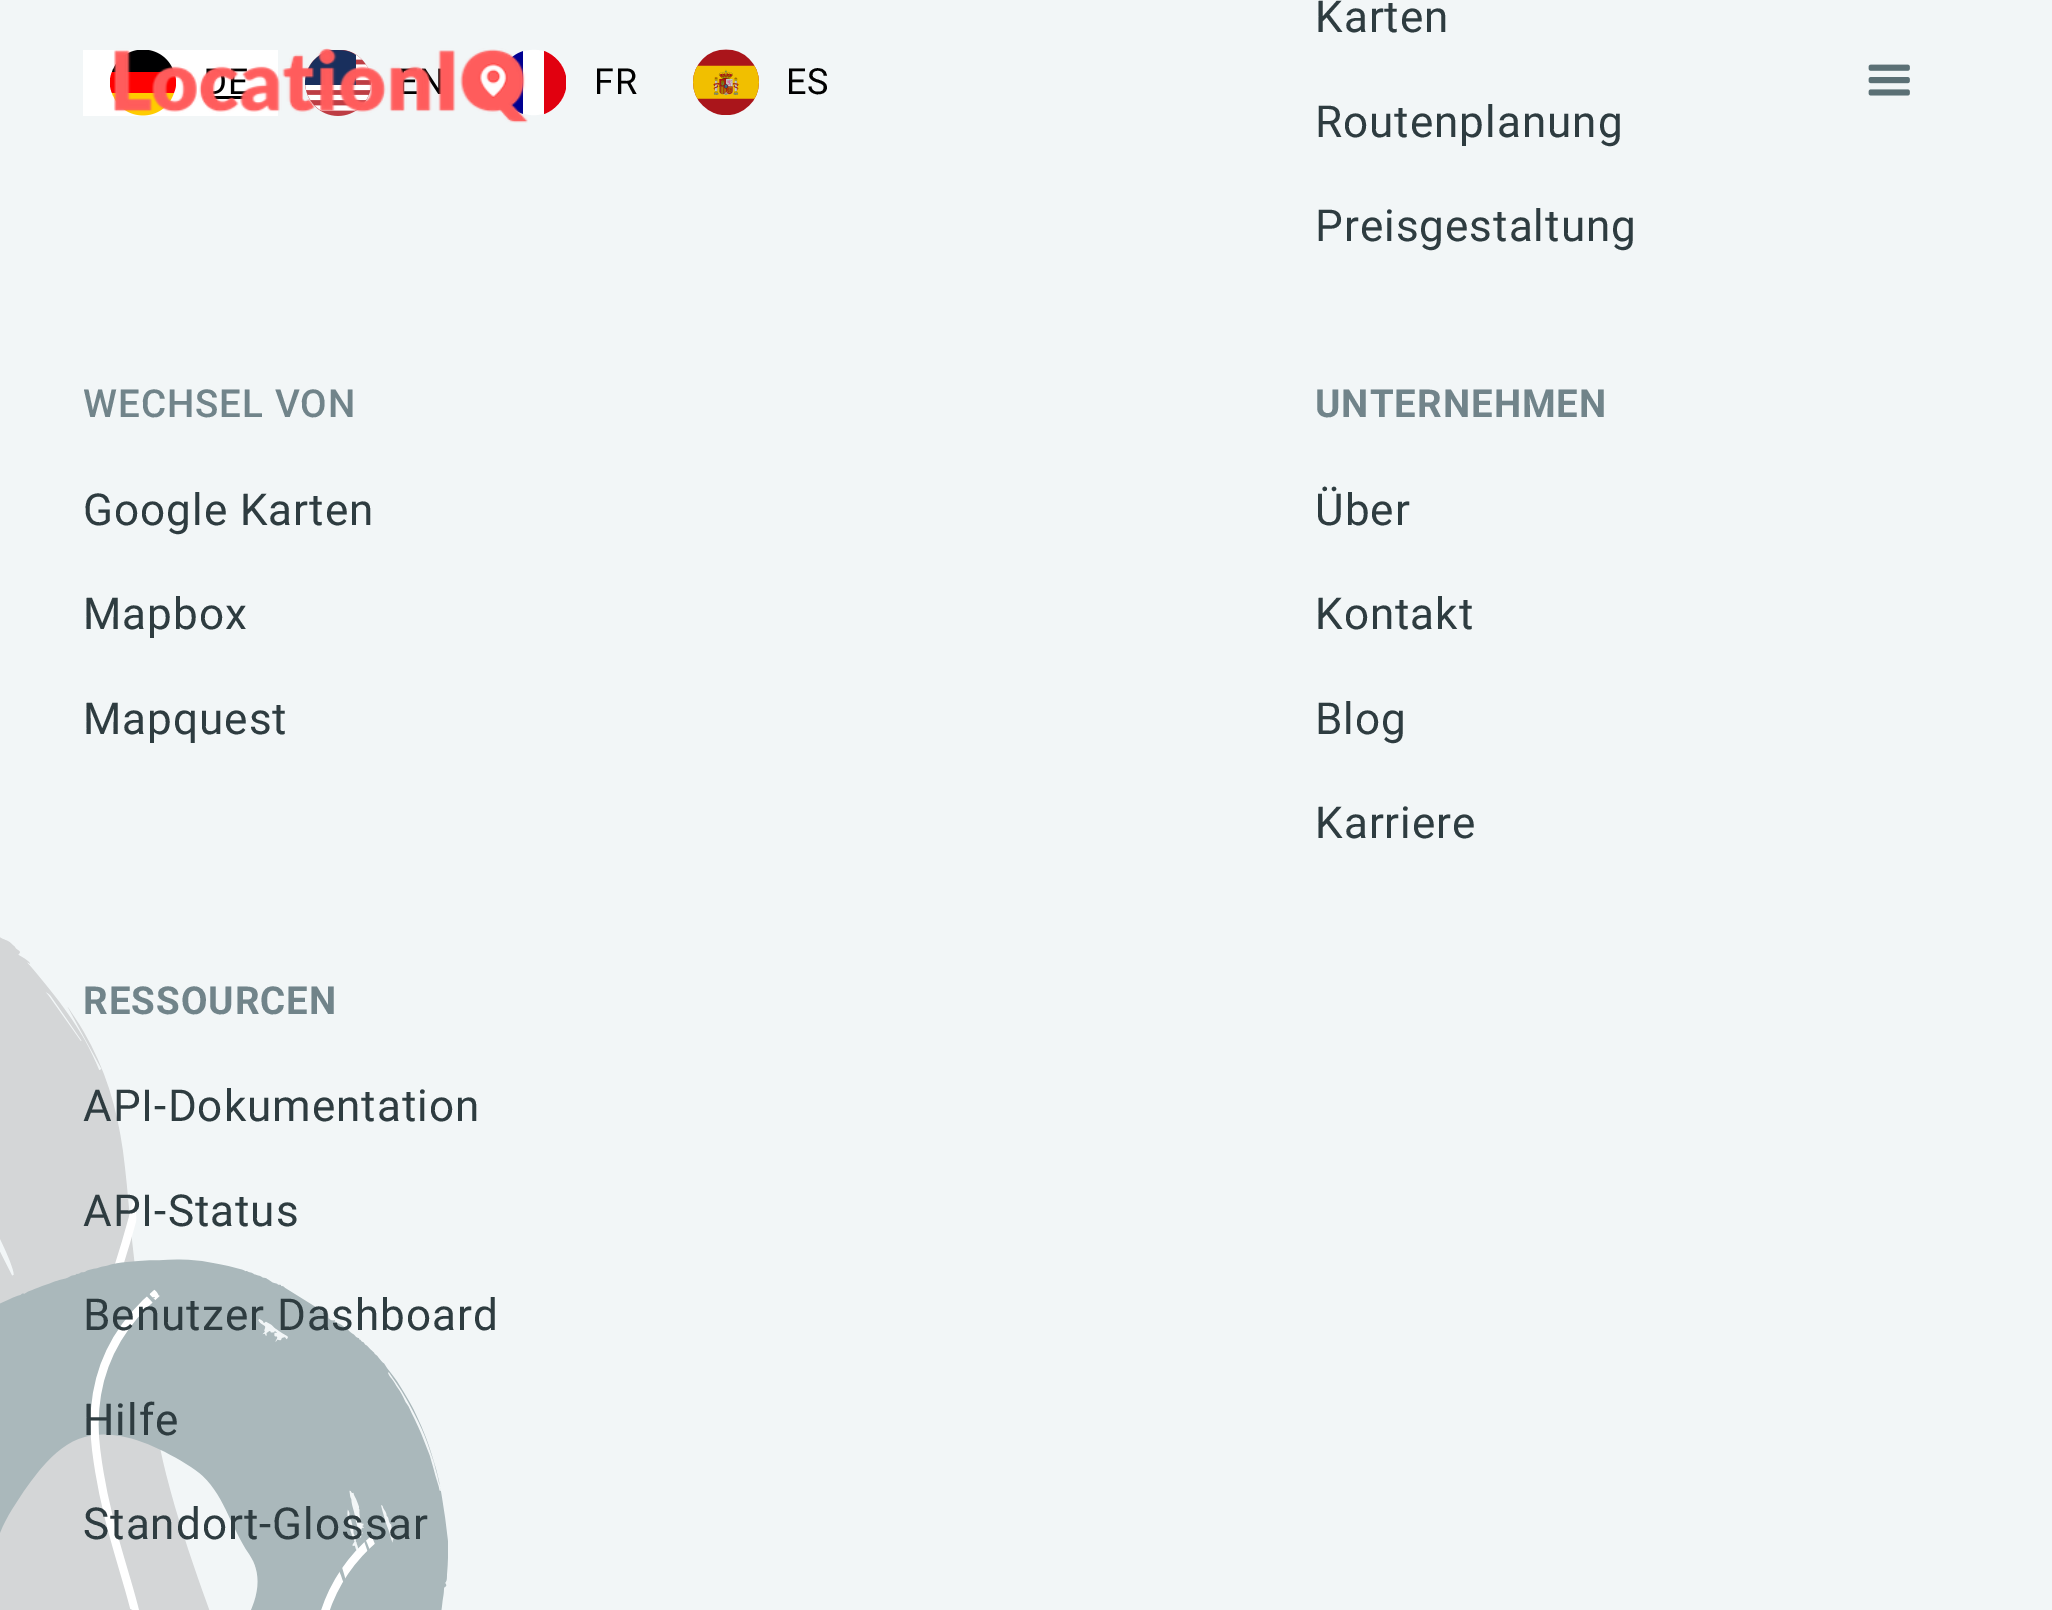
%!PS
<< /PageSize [2052 1610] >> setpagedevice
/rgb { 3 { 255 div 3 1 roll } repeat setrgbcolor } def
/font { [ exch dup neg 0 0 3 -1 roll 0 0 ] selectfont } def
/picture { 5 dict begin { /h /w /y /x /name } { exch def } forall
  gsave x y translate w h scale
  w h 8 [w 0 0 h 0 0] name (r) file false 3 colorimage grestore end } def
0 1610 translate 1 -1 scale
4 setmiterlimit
242 246 247 rgb
0 0 2052 1610 rectfill
255 255 255 rgb
83 50 195 66 rectfill
255 204 0 rgb
174 93 moveto -10 30 -52 30 -62 0 rcurveto closepath fill
gsave
110 50 66 66 rectclip
0 0 1 rgb
112 72 moveto 10 -30 52 -30 62 0 rcurveto closepath fill
255 0 0 rgb
112 93 moveto -3 -7 -3 -14 0 -21 rcurveto 62 0 rlineto 3 7 3 14 0 21 rcurveto closepath fill
grestore
0 0 0 rgb
204 96 46 3 rectfill
189 61 68 rgb
371 87 moveto -2 16 -16 29 -33 29 rcurveto -18 0 -33 -15 -33 -34 rcurveto 0 -16 12 -29 27 -32 rcurveto 12 0 rlineto 14 2 25 14 27 28 rcurveto closepath fill
gsave
338 49.5 moveto 18.5 0 33 15 33 33 rcurveto 0 18 -14.5 33 -33 33 rcurveto -18 0 -33 -15 -33 -33 rcurveto 0 -18 15 -33 33 -33 rcurveto closepath clip newpath
255 255 255 rgb
5.2 setlinewidth
305 57 moveto 66 0 rlineto 305 67 moveto 66 0 rlineto 305 77.5 moveto 66 0 rlineto 305 87.5 moveto 66 0 rlineto 305 97.5 moveto 66 0 rlineto 305 108 moveto 66 0 rlineto stroke
grestore
25 47 93 rgb
305 85 moveto -1 -17 11 -32 27 -35 rcurveto 6 0 rlineto 7 0 12 1 18 5 rcurveto 0 30 rlineto closepath fill
255 255 255 rgb
566 88 moveto -7 39 -65 35 -66 -6 rcurveto 0 -36 53 -45 65 -10 rcurveto 2 5 1 11 1 16 rcurveto closepath fill
0 0 145 rgb
523 51 moveto 0 63 rlineto -30 -10 -30 -53 0 -63 rcurveto closepath fill
225 0 15 rgb
566 88 moveto -2 12 -11 22 -22 26 rcurveto 0 -63 rlineto 11 4 20 14 22 26 rcurveto closepath fill
(img_01.rgb) 693 49 66 66 picture
(img_02.rgb) 0 937 448 673 picture
(img_03.rgb) 113 48 415 75 picture
(img_04.rgb) 1868 64 42 32 picture
/Roboto-Regular 36 font
0 0 0 rgb
594 94 moveto 1 0 (FR) ashow
786 94 moveto 1 0 (ES) ashow
/Roboto-Regular 44 font
46 60 64 rgb
1315 32 moveto 1 0 (Karten) ashow
1315 137 moveto 1 0 (Routenplanung) ashow
1315 241 moveto 1 0 (Preisgestaltung) ashow
/Roboto-Medium 38.5 font
113 132 138 rgb
83 417 moveto 1 0 (WECHSEL VON) ashow
/Roboto-Regular 44 font
46 60 64 rgb
83 525 moveto 1 0 (Google Karten) ashow
83 629 moveto 1 0 (Mapbox) ashow
83 734 moveto 1 0 (Mapquest) ashow
/Roboto-Bold 38.5 font
113 132 138 rgb
1315 417 moveto 1 0 (UNTERNEHMEN) ashow
/Roboto-Regular 44 font
46 60 64 rgb
1315 525 moveto 1 0 (Über) ashow
1315 629 moveto 1 0 (Kontakt) ashow
1315 734 moveto 1 0 (Blog) ashow
1315 838 moveto 1 0 (Karriere) ashow
/Roboto-Bold 38.5 font
113 132 138 rgb
83 1014 moveto 1 0 (RESSOURCEN) ashow
/Roboto-Regular 44 font
46 60 64 rgb
83 1121 moveto 1 0 (API-Dokumentation) ashow
83 1226 moveto 1 0 (API-Status) ashow
83 1330 moveto 1 0 (Benutzer Dashboard) ashow
83 1435 moveto 1 0 (Hilfe) ashow
83 1539 moveto 1 0 (Standort-Glossar) ashow
showpage
